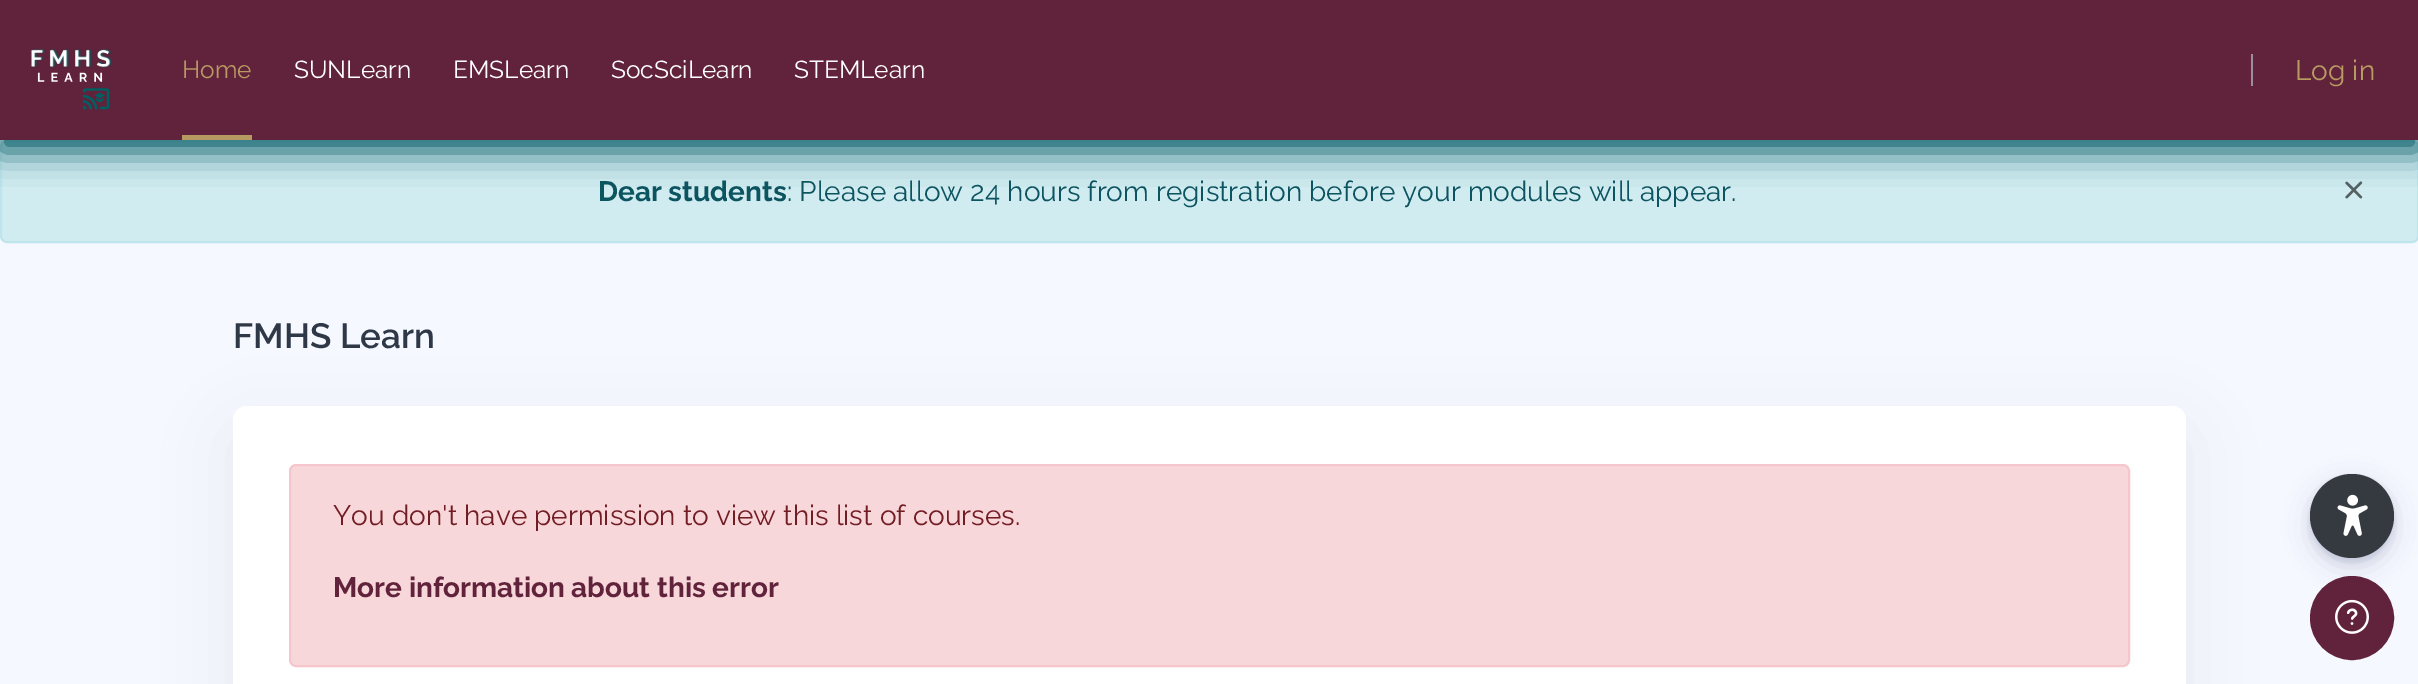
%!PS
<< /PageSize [2418 684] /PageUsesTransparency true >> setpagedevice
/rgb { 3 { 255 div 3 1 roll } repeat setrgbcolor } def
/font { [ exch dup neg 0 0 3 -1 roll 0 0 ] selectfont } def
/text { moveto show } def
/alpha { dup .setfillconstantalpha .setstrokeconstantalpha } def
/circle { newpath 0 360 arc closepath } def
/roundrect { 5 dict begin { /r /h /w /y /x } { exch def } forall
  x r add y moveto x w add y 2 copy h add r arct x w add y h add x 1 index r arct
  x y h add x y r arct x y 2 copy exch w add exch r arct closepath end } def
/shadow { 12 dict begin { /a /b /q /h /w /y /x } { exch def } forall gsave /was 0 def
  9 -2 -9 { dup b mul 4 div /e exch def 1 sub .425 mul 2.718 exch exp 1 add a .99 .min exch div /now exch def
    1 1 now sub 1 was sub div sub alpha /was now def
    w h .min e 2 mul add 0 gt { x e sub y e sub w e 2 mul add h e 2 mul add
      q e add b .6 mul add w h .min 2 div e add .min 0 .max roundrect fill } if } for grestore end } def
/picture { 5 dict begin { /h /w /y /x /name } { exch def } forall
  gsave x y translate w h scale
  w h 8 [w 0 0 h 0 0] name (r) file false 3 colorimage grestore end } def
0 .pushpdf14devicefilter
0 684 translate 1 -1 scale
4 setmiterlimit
245 248 255 rgb
0 0 2418 684 rectfill
209 236 241 rgb
1 141 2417 101 6 roundrect gsave fill grestore
190 229 235 rgb
2 setlinewidth
stroke
(img_02.rgb) 2345 181 18 18 picture
0 87 97 rgb
0 11 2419 140 0 16 1 shadow
97 34 59 rgb
0 0 2418 140 rectfill
(img_01.rgb) 31 49 81 61 picture
183 153 98 rgb
182 135 70 5 rectfill
156 142 157 rgb
2251 54 2 32 rectfill
92 107 121 rgb
233 429 1953 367 14 32.5 0.1 shadow
255 255 255 rgb
233 406 1953 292 14 roundrect fill
248 215 218 rgb
290 465 1839 201 6 roundrect gsave fill grestore
245 198 203 rgb
stroke
93 100 148 rgb
2310 478 84 84 42 3.5 0.2 shadow
37 44 97 rgb
2310 483 84 84 42 13 0.15 shadow
52 58 64 rgb
2352 516 42 circle fill
(img_03.rgb) 2337 494 31 42 picture
97 34 59 rgb
2352 618 41 circle gsave fill grestore
stroke
(img_04.rgb) 2335 599 34 35 picture
/Raleway-Regular 24.5 font
183 153 98 rgb
(Home) 182 78 text
255 255 255 rgb
(SUNLearn) 294 78 text
(EMSLearn) 453 78 text
(SocSciLearn) 611 78 text
(STEMLearn) 794 78 text
/Raleway-Regular 28 font
183 153 98 rgb
(Log in) 2295 80 text
/Raleway-Bold 28 font
12 84 96 rgb
(Dear students) 598 201 text
/Raleway-Regular 28 font
(: Please allow 24 hours from registration before your modules will appear.) 787 201 text
/Raleway-SemiBold 35 font
47 56 71 rgb
(FMHS Learn) 233 348 text
/Raleway-Regular 28 font
114 28 36 rgb
(You don't have permission to view this list of courses.) 333 525 text
/Raleway-Bold 28 font
97 34 59 rgb
(More information about this error) 333 597 text
.poppdf14devicefilter showpage
